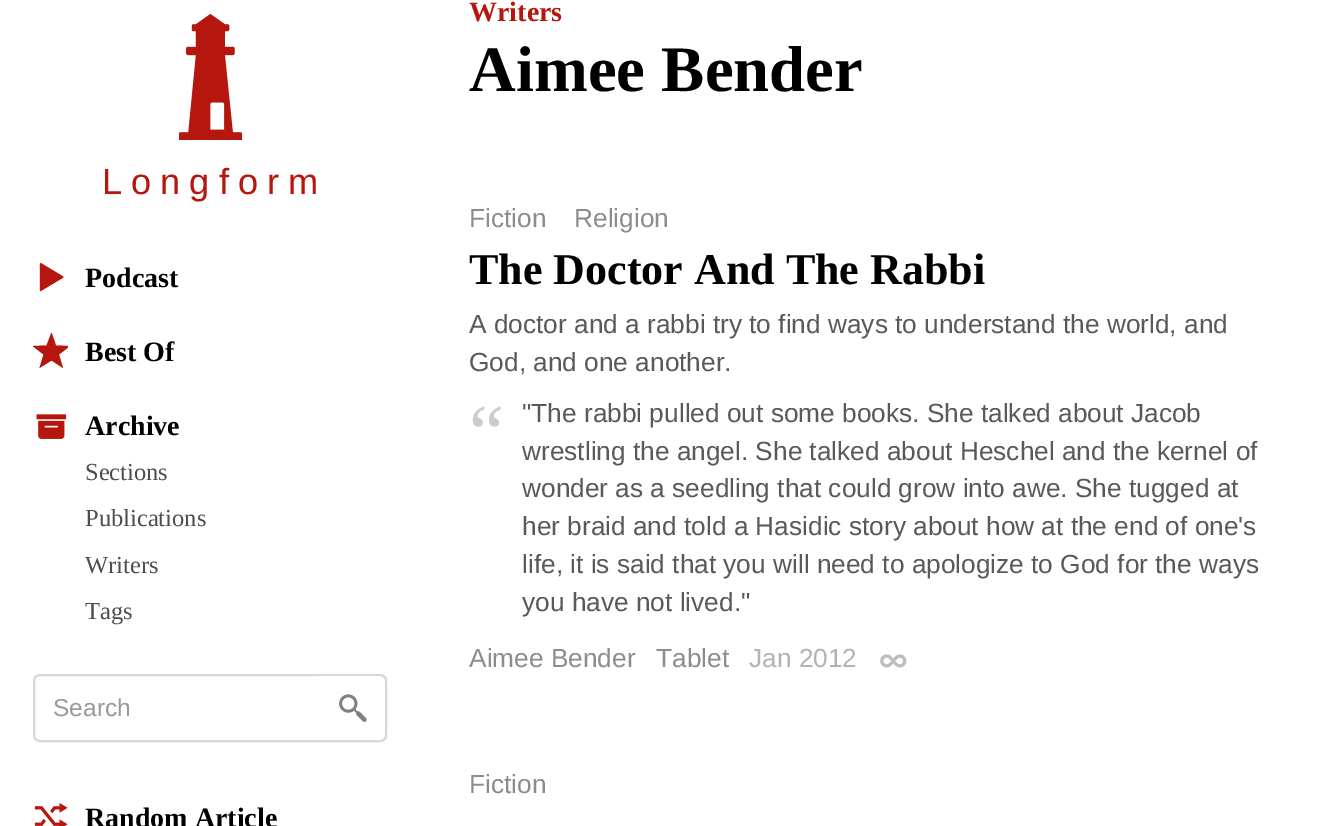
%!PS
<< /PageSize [1331 826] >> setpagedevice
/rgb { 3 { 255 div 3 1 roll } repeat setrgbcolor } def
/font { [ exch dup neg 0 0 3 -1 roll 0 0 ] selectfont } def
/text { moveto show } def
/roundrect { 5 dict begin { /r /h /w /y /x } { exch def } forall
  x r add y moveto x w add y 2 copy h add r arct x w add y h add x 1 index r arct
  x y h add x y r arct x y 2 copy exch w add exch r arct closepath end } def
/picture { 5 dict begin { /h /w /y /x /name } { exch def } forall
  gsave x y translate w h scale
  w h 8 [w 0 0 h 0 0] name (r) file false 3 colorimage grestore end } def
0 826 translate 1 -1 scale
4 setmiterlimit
255 255 255 rgb
0 0 1331 826 rectfill
(img_01.rgb) 179 14 63 126 picture
(img_02.rgb) 39 262 25 30 picture
gsave
33 333 35 36 rectclip
181 23 15 rgb
51.5 360.5 moveto -12 7.5 rlineto 4 -13.5 rlineto -11 -8.5 rlineto 14 -0.5 rlineto 5 -13 rlineto 4.5 13 rlineto 14 0.5 rlineto -11 8.5 rlineto 4 13.5 rlineto closepath eofill
grestore
(img_03.rgb) 36 414 31 25 picture
217 217 217 rgb
2 setlinewidth
34 675 352 66 6 roundrect stroke
255 255 255 rgb
319 676 moveto 61 0 rlineto 3 0 5 2 5 5 rcurveto 0 54 rlineto 0 3 -2 5 -5 5 rcurveto -61 0 rlineto closepath fill
(img_04.rgb) 339 694 28 28 picture
217 217 217 rgb
318 674 moveto 62 0 rlineto 4 0 7 3 7 7 rcurveto 0 54 rlineto 0 4 -3 7 -7 7 rcurveto -62 0 rlineto closepath 318 676 moveto 62 0 rlineto 3 0 5 2 5 5 rcurveto 0 54 rlineto 0 3 -2 5 -5 5 rcurveto -62 0 rlineto closepath eofill
(img_05.rgb) 34 803 34 23 picture
(img_06.rgb) 880 654 27 14 picture
/LiberationSans-Regular 36.25 font
181 23 15 rgb
102 194 moveto 9 0 (Longfor) ashow
(m) 288 194 text
/LiberationSerif-Bold 28 font
0 0 0 rgb
(Podcast) 85 287 text
(Best Of) 85 361 text
(Archive) 85 435 text
/LiberationSerif-Regular 24.5 font
77 77 77 rgb
(Sections) 85 480 text
(Publications) 85 526 text
(Writers) 85 573 text
(Tags) 85 619 text
/LiberationSans-Regular 24.5 font
153 153 153 rgb
(Search) 53 716 text
/LiberationSerif-Bold 28 font
0 0 0 rgb
(Random Article) 85 827 text
181 23 15 rgb
(Writers) 469 21 text
/LiberationSerif-Bold 64.75 font
0 0 0 rgb
(Aimee Bender) 469 91 text
/LiberationSans-Regular 26.25 font
140 140 140 rgb
(Fiction) 469 227 text
(Religion) 574 227 text
/LiberationSerif-Bold 44 font
0 0 0 rgb
(The Doctor And The Rabbi) 469 284 text
/LiberationSans-Regular 26.25 font
89 89 89 rgb
(A doctor and a rabbi try to find ways to understand the world, and) 469 333 text
(God, and one another.) 469 371 text
/LiberationSerif-Regular 79 font
204 204 204 rgb
(“) 469 459 text
/LiberationSans-Regular 26.25 font
89 89 89 rgb
("The rabbi pulled out some books. She talked about Jacob) 522 422 text
(wrestling the angel. She talked about Heschel and the kernel of) 522 460 text
(wonder as a seedling that could grow into awe. She tugged at) 522 497 text
(her braid and told a Hasidic story about how at the end of one's) 522 535 text
(life, it is said that you will need to apologize to God for the ways) 522 573 text
(you have not lived.") 522 611 text
140 140 140 rgb
(Aimee Bender) 469 667 text
(Tablet) 656 667 text
179 179 179 rgb
(Jan 2012) 749 667 text
140 140 140 rgb
(Fiction) 469 793 text
showpage
